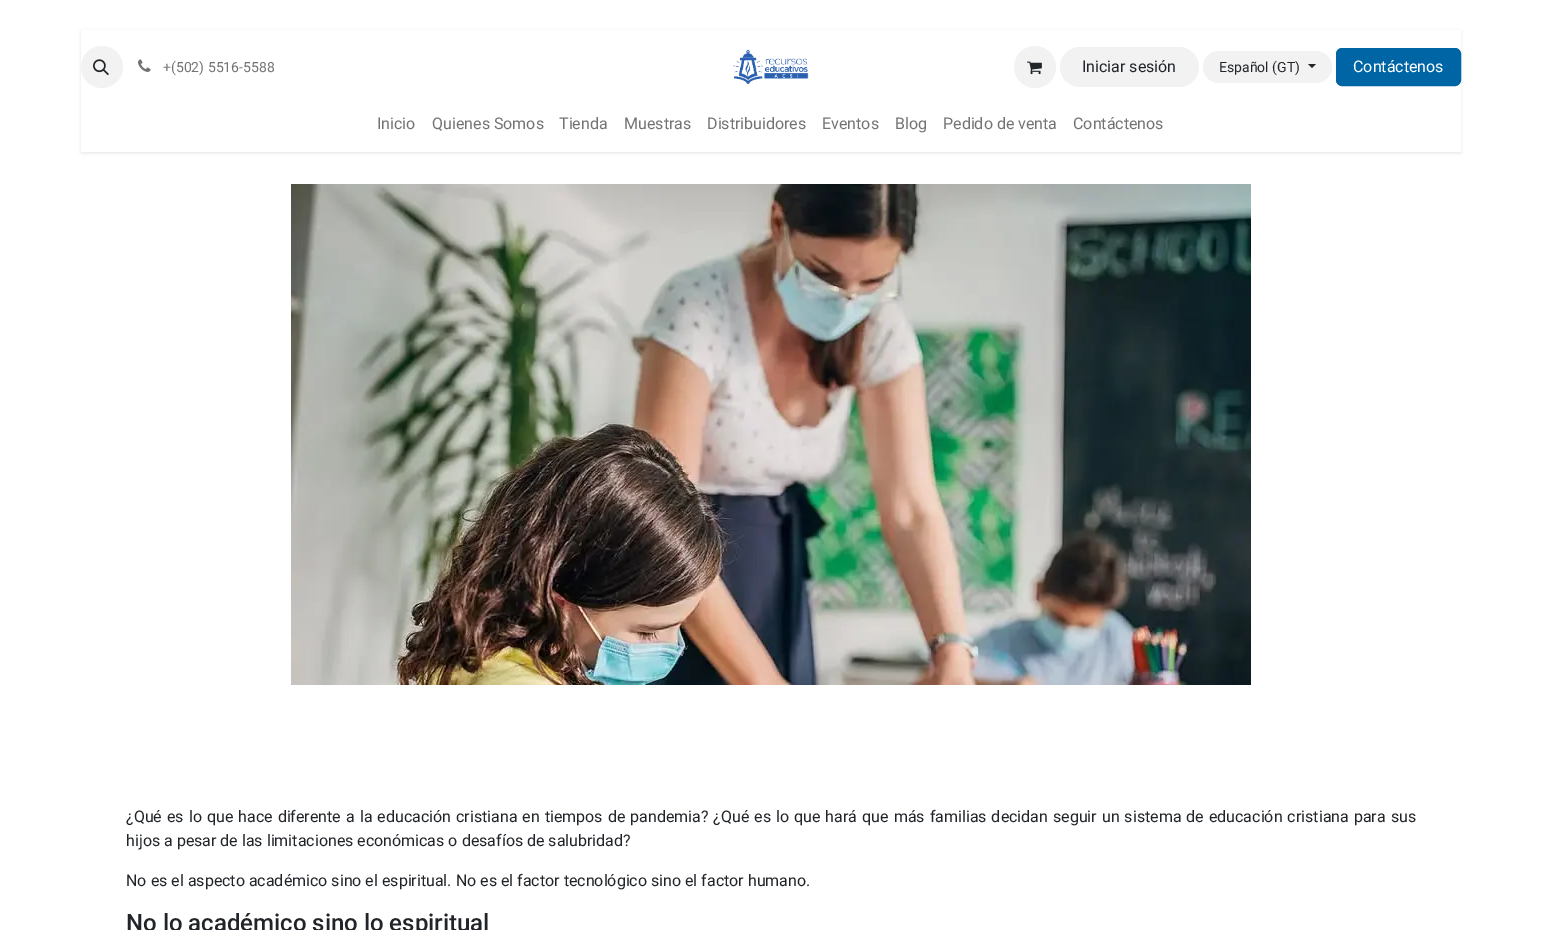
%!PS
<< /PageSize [1541 930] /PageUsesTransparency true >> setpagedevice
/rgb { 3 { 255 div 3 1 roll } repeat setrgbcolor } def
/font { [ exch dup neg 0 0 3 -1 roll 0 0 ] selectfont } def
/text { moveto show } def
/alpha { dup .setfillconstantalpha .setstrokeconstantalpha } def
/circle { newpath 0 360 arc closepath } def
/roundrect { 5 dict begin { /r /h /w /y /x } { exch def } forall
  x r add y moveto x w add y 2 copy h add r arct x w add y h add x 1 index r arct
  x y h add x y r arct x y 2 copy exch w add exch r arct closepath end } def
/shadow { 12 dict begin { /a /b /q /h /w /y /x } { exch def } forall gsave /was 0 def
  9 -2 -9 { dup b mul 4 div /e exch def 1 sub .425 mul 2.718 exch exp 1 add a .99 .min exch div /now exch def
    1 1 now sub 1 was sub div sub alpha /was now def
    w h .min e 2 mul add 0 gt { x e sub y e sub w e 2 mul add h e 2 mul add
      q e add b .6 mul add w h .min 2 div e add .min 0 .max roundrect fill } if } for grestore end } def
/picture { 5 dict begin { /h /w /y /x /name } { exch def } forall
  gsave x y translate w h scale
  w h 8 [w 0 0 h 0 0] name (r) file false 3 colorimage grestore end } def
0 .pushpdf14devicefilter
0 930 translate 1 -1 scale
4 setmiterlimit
255 255 255 rgb
0 0 1541 930 rectfill
gsave
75 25 moveto 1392 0 rlineto 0 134 rlineto -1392 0 rlineto closepath 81 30 moveto 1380 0 rlineto 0 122 rlineto -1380 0 rlineto closepath eoclip newpath
0 0 0 rgb
81 31 1380 122 0 1.5 0.1 shadow
grestore
242 242 242 rgb
102 67 21 circle fill
(img_01.rgb) 93 59 16 17 picture
(img_02.rgb) 138 59 13 13 picture
(img_03.rgb) 733 49 76 36 picture
1035 67 21 circle fill
(img_04.rgb) 1027 61 15 14 picture
1060 47 139 40 20 roundrect fill
1203 51 129 32 16 roundrect fill
33 37 41 rgb
1308 64 moveto 8 0 rlineto -4 4 rlineto closepath fill
0 101 164 rgb
1336.5 48.5 124 37 5.5 roundrect gsave fill grestore
stroke
(img_05.rgb) 291 184 960 501 picture
/Roboto-Regular 14 font
115 115 115 rgb
(+\(502\) 5516-5588) 163 72 text
/Roboto-Regular 16 font
33 37 41 rgb
(Iniciar sesión) 1082 72 text
/Roboto-Regular 14 font
(Español \(GT\)) 1219 72 text
/Roboto-Regular 16 font
255 255 255 rgb
(Contáctenos) 1353 72 text
115 115 115 rgb
(Inicio) 377 129 text
(Quienes Somos) 432 129 text
(Tienda) 559 129 text
(Muestras) 624 129 text
(Distribuidores) 707 129 text
(Eventos) 822 129 text
(Blog) 895 129 text
(Pedido de venta) 943 129 text
(Contáctenos) 1073 129 text
33 37 41 rgb
126 822 moveto 1.05 0 32 (¿Qué es lo que hace diferente a la educación cristiana en tiempos de pandemia? ¿Qué es lo que hará que más familias decidan seguir un sistema de educación cristiana para sus) widthshow
(hijos a pesar de las limitaciones económicas o desafíos de salubridad?) 126 846 text
(No es el aspecto académico sino el espiritual. No es el factor tecnológico sino el factor humano.) 126 886 text
/Roboto-Medium 24 font
(No lo académico sino lo espiritual) 126 931 text
.poppdf14devicefilter showpage
